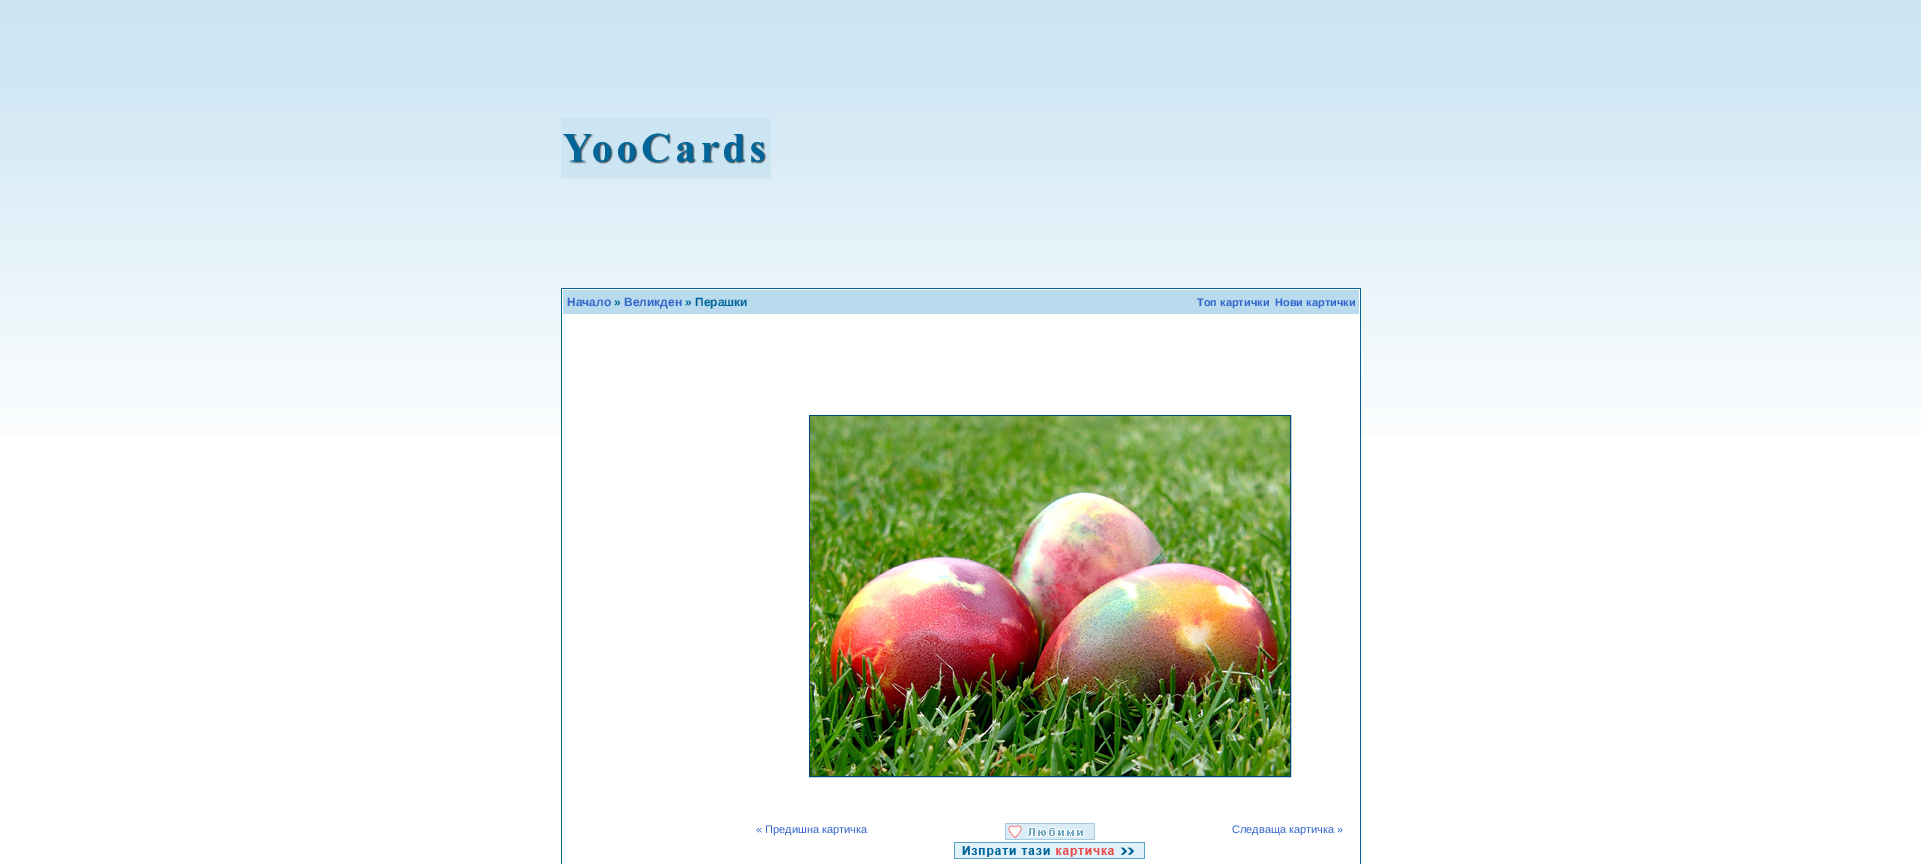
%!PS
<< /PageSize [1921 864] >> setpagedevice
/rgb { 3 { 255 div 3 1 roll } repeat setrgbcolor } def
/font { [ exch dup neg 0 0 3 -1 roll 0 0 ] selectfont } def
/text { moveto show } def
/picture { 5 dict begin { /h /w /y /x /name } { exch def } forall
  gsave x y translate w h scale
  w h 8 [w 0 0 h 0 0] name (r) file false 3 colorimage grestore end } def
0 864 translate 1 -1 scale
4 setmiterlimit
255 255 255 rgb
0 0 1921 864 rectfill
(img_01.rgb) 0 0 1921 436 picture
(img_02.rgb) 561 118 210 60 picture
0 102 153 rgb
561 288 800 576 rectfill
255 255 255 rgb
562 289 798 575 rectfill
185 219 237 rgb
563 290 796 24 rectfill
0 76 117 rgb
809.5 415.5 481 361 rectstroke
(img_03.rgb) 810 416 480 360 picture
(img_04.rgb) 1005 823 90 17 picture
(img_05.rgb) 954 842 191 17 picture
/LiberationSans-Bold 12 font
51 102 204 rgb
(Начало) 567 306 text
0 102 153 rgb
(») 614 306 text
51 102 204 rgb
(Великден) 624 306 text
0 102 153 rgb
(» Перашки) 685 306 text
/LiberationSans-Bold 11 font
51 102 204 rgb
(Топ картички) 1197 306 text
(Нови картички) 1275 306 text
/LiberationSans-Regular 11 font
(« Предишна картичка) 756 833 text
(Следваща картичка ») 1232 833 text
showpage
